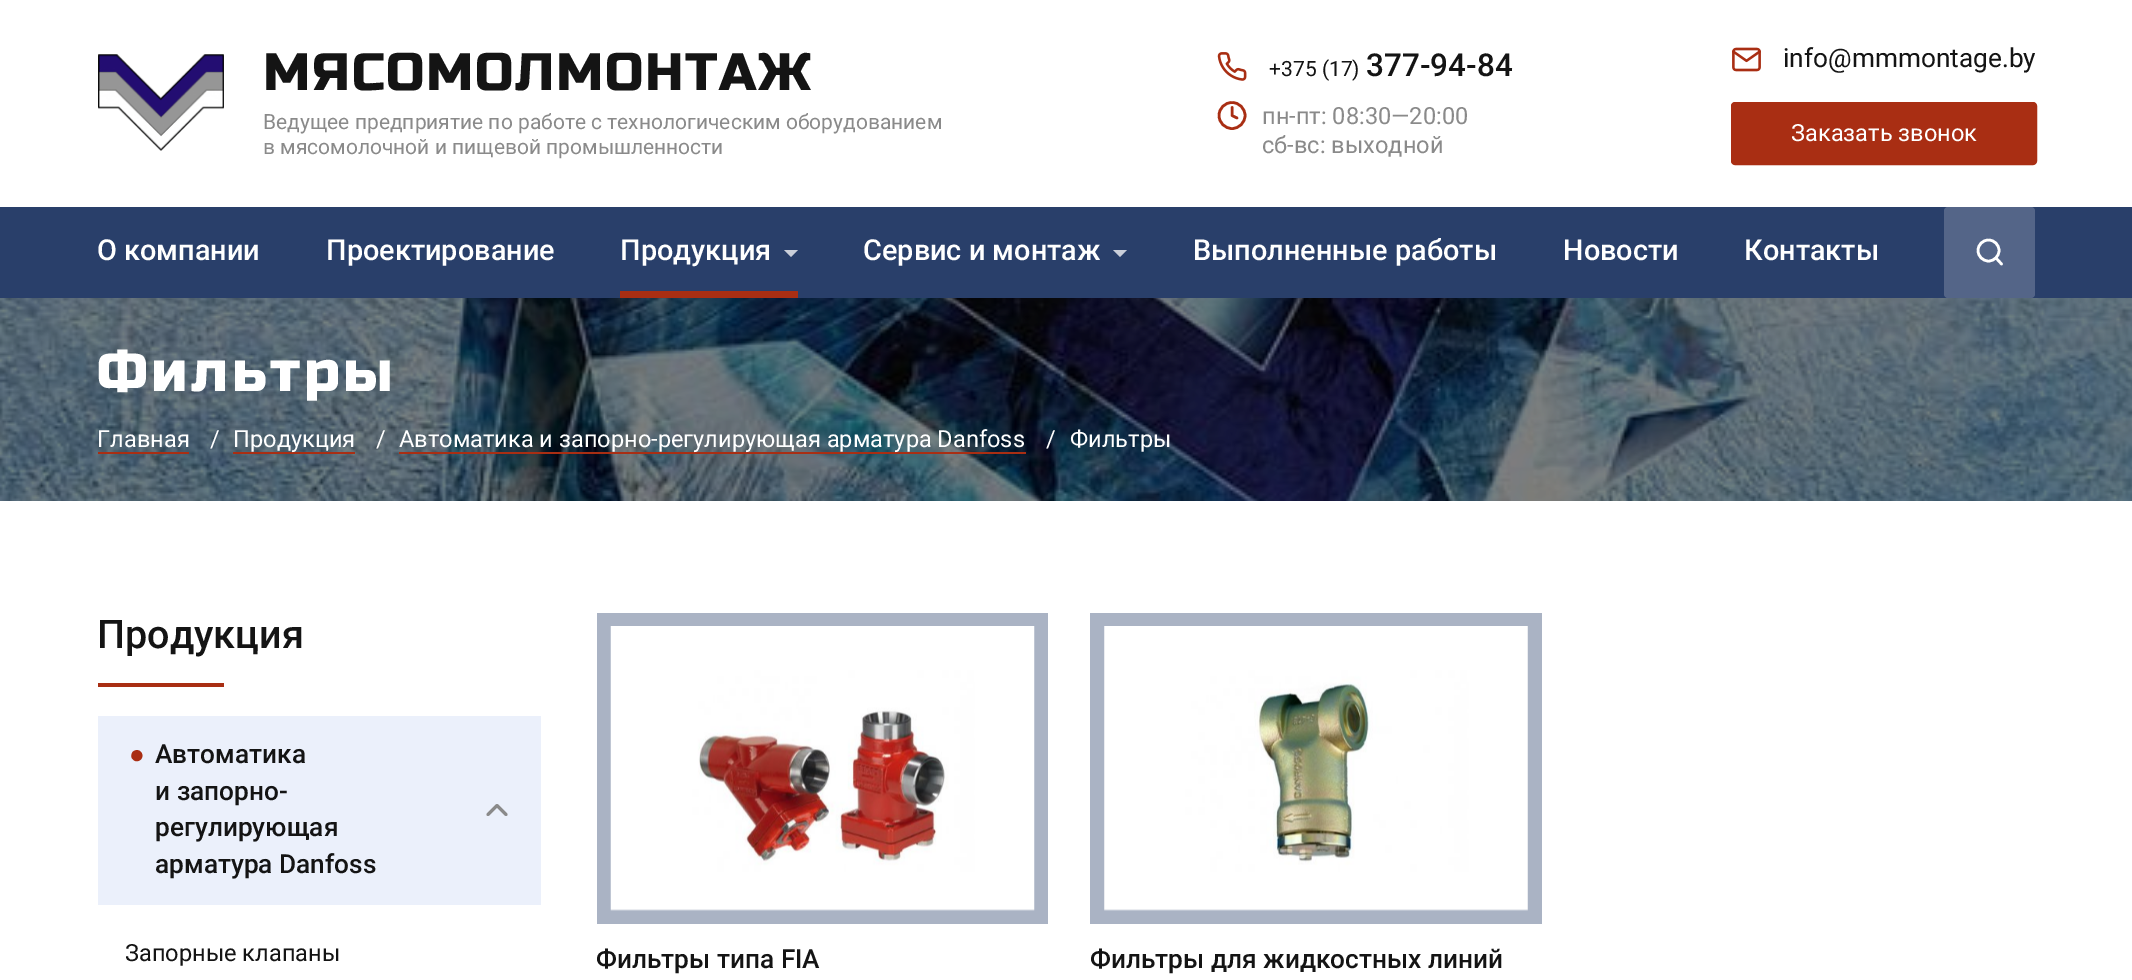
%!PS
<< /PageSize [2132 980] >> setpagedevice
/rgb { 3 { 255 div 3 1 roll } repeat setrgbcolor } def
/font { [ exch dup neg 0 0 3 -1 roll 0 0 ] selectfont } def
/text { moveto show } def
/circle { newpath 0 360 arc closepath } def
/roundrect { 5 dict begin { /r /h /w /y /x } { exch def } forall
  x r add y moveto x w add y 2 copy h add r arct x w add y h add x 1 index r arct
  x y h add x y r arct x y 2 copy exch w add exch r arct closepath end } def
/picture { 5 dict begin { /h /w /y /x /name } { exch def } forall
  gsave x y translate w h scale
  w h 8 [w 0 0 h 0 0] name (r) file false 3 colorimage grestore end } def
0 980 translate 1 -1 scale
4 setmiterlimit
255 255 255 rgb
0 0 2132 980 rectfill
(img_01.rgb) 98 54 126 97 picture
(img_02.rgb) 1217 52 30 29 picture
169 46 19 rgb
2.6 setlinewidth
1232 115.5 13 circle stroke
1 setlinecap
1 setlinejoin
1232 107.5 moveto 0 8 rlineto 5 2.5 rlineto stroke
(img_03.rgb) 1732 47 29 25 picture
1732 103 304 61 3 roundrect gsave fill grestore
2 setlinewidth
0 setlinecap
0 setlinejoin
stroke
41 63 106 rgb
0 207 2132 91 rectfill
169 46 19 rgb
620 291 178 7 rectfill
202 207 218 rgb
784 250 moveto 14 0 rlineto -7 7 rlineto closepath fill
1113 250 moveto 14 0 rlineto -7 7 rlineto closepath fill
84 101 136 rgb
1944 207 91 91 4 roundrect fill
255 255 255 rgb
2.6 setlinewidth
1988.5 250.5 10.5 circle stroke
1 setlinecap
1 setlinejoin
2001.5 264 moveto -5.5 -6 rlineto stroke
(img_04.rgb) 0 298 2132 203 picture
169 46 19 rgb
98 452 91 2 rectfill
233 452 122 2 rectfill
399 452 627 2 rectfill
98 683 126 4 rectfill
235 240 251 rgb
98 716 443 189 rectfill
138 138 138 rgb
2.9 setlinewidth
506 814.5 moveto -9 -9 rlineto -9 9 rlineto stroke
170 179 196 rgb
597 613 451 311 rectfill
(img_05.rgb) 610 626 425 285 picture
1090 613 452 311 rectfill
(img_06.rgb) 1104 626 424 285 picture
/RussoOne-Regular 52.5 font
20 20 20 rgb
263 90 moveto 1.75 0 (МЯСОМОЛМОНТАЖ) ashow
/Roboto-Regular 21 font
138 138 138 rgb
(Ведущее предприятие по работе с технологическим оборудованием) 263 129 text
(в мясомолочной и пищевой промышленности) 263 154 text
20 20 20 rgb
(+375 \(17\)) 1269 76 text
/Roboto-Medium 31.5 font
(377-94-84) 1366 76 text
/Roboto-Regular 23.6 font
138 138 138 rgb
(пн-пт: 08:30—20:00) 1262 124 text
(сб-вс: выходной) 1262 153 text
/Roboto-Regular 26.25 font
20 20 20 rgb
(info@mmmontage.by) 1783 67 text
/Roboto-Regular 23.6 font
255 255 255 rgb
(Заказать звонок) 1791 141 text
/Roboto-Medium 28.9 font
(О компании) 97 260 text
(Проектирование) 326 260 text
(Продукция) 620 260 text
(Сервис и монтаж) 863 260 text
(Выполненные работы) 1193 260 text
(Новости) 1563 260 text
(Контакты) 1744 260 text
/RussoOne-Regular 57.75 font
97 391 moveto 3.5 0 (Фильтры) ashow
/Roboto-Regular 23.6 font
(Главная) 97 447 text
(/) 210 447 text
(Продукция) 233 447 text
(/) 376 447 text
(Автоматика и запорно-регулирующая арматура Danfoss) 399 447 text
(/) 1046 447 text
(Фильтры) 1070 447 text
/Roboto-Medium 39.5 font
20 20 20 rgb
(Продукция) 97 648 text
/LiberationSans-Regular 26.25 font
169 46 19 rgb
(●) 129 763 text
/Roboto-Medium 26.25 font
20 20 20 rgb
(Автоматика) 155 763 text
(и запорно-) 155 800 text
(регулирующая) 155 836 text
(арматура Danfoss) 155 873 text
/Roboto-Regular 23.6 font
(Запорные клапаны) 125 961 text
/Roboto-Medium 26.25 font
(Фильтры типа FIA) 596 968 text
(Фильтры для жидкостных линий) 1090 968 text
showpage
